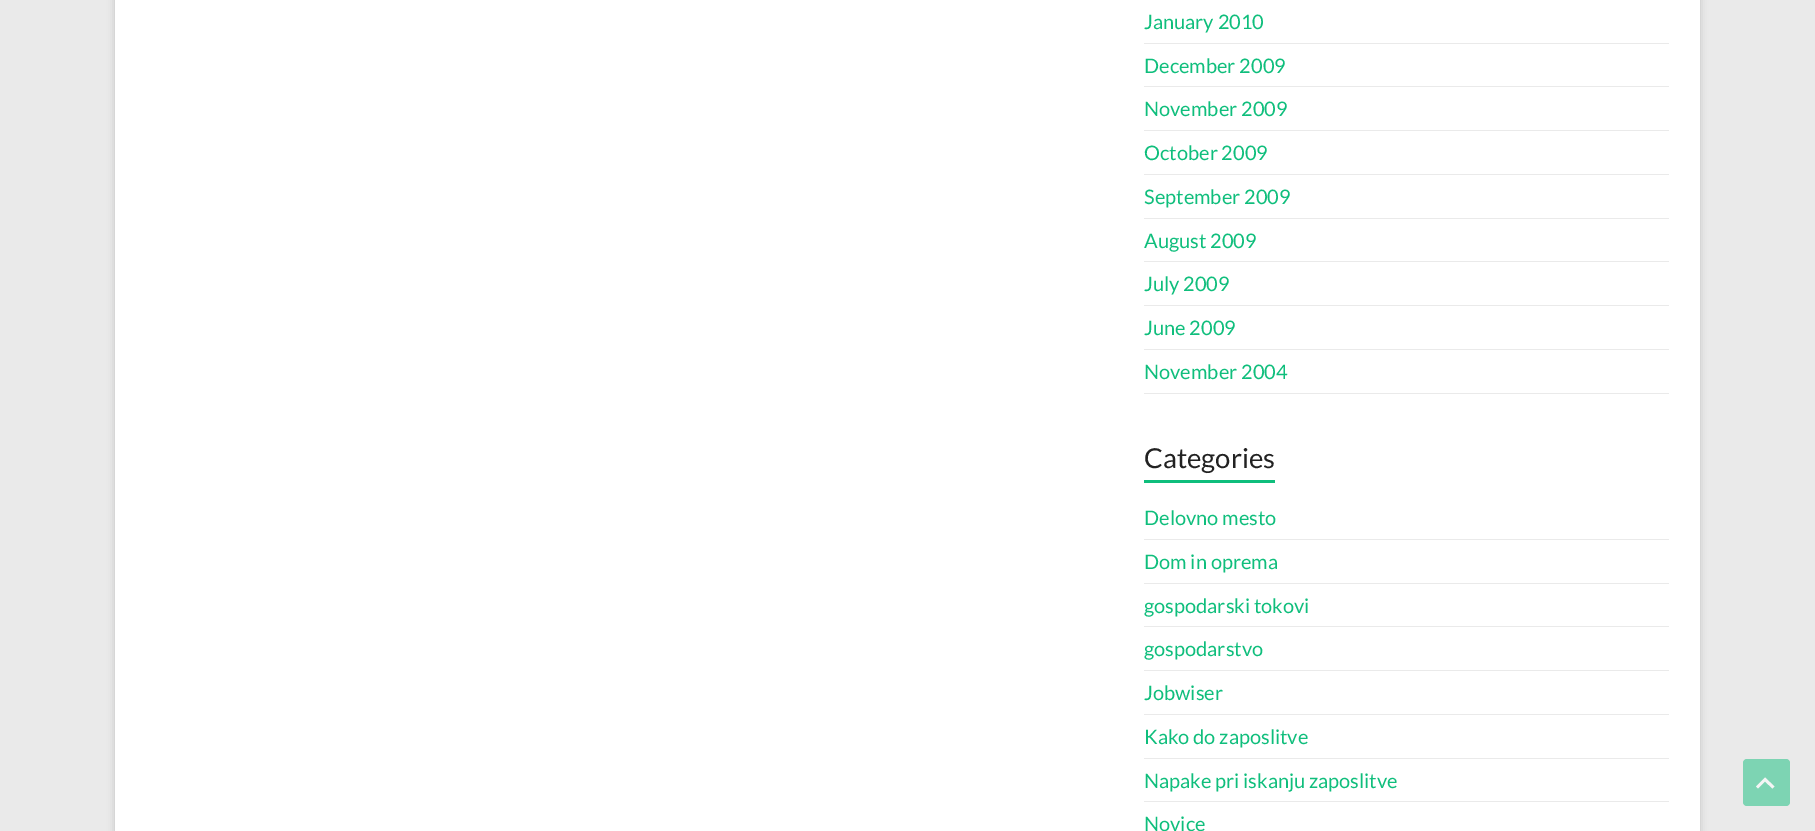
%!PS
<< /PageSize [1815 831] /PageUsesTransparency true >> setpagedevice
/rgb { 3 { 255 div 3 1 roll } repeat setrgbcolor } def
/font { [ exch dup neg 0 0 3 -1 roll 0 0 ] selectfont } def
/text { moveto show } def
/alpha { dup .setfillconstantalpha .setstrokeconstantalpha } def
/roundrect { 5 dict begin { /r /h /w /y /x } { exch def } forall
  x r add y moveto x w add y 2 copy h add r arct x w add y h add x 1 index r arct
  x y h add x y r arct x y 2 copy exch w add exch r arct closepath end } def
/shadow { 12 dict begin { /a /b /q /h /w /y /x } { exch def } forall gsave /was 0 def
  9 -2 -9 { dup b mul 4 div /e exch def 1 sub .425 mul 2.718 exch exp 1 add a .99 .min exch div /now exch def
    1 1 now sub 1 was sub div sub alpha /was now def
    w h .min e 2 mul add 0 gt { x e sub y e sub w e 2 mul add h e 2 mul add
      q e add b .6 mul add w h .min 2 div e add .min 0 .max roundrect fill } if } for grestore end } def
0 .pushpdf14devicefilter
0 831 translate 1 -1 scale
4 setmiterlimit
234 234 234 rgb
0 0 1815 831 rectfill
100 100 100 rgb
115 -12 1585 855 0 4 0.3 shadow
255 255 255 rgb
115 0 1585 831 rectfill
234 234 234 rgb
1144 43 525 1 rectfill
1144 86 525 1 rectfill
1144 130 525 1 rectfill
1144 174 525 1 rectfill
1144 218 525 1 rectfill
1144 261 525 1 rectfill
1144 305 525 1 rectfill
1144 349 525 1 rectfill
1144 393 525 1 rectfill
15 190 124 rgb
1144 480 131 3 rectfill
234 234 234 rgb
1144 539 525 1 rectfill
1144 583 525 1 rectfill
1144 626 525 1 rectfill
1144 670 525 1 rectfill
1144 714 525 1 rectfill
1144 758 525 1 rectfill
1144 801 525 1 rectfill
125 212 179 rgb
1743 759 47 47 4 roundrect fill
245 245 245 rgb
1772.5 788.5 moveto -7.5 -7 rlineto -7 7 rlineto -2 -2 rlineto 9 -9 rlineto 9.5 9 rlineto closepath fill
/Lato-Regular 20 font
15 190 124 rgb
(January 2010) 1144 29 text
(December 2009) 1144 73 text
(November 2009) 1144 116 text
(October 2009) 1144 160 text
(September 2009) 1144 204 text
(August 2009) 1144 248 text
(July 2009) 1144 291 text
(June 2009) 1144 335 text
(November 2004) 1144 379 text
/Lato-Regular 27.5 font
34 34 34 rgb
(Categories) 1144 468 text
/Lato-Regular 20 font
15 190 124 rgb
(Delovno mesto) 1144 525 text
(Dom in oprema) 1144 569 text
(gospodarski tokovi) 1144 613 text
(gospodarstvo) 1144 656 text
(Jobwiser) 1144 700 text
(Kako do zaposlitve) 1144 744 text
(Napake pri iskanju zaposlitve) 1144 788 text
(Novice) 1144 831 text
.poppdf14devicefilter showpage
